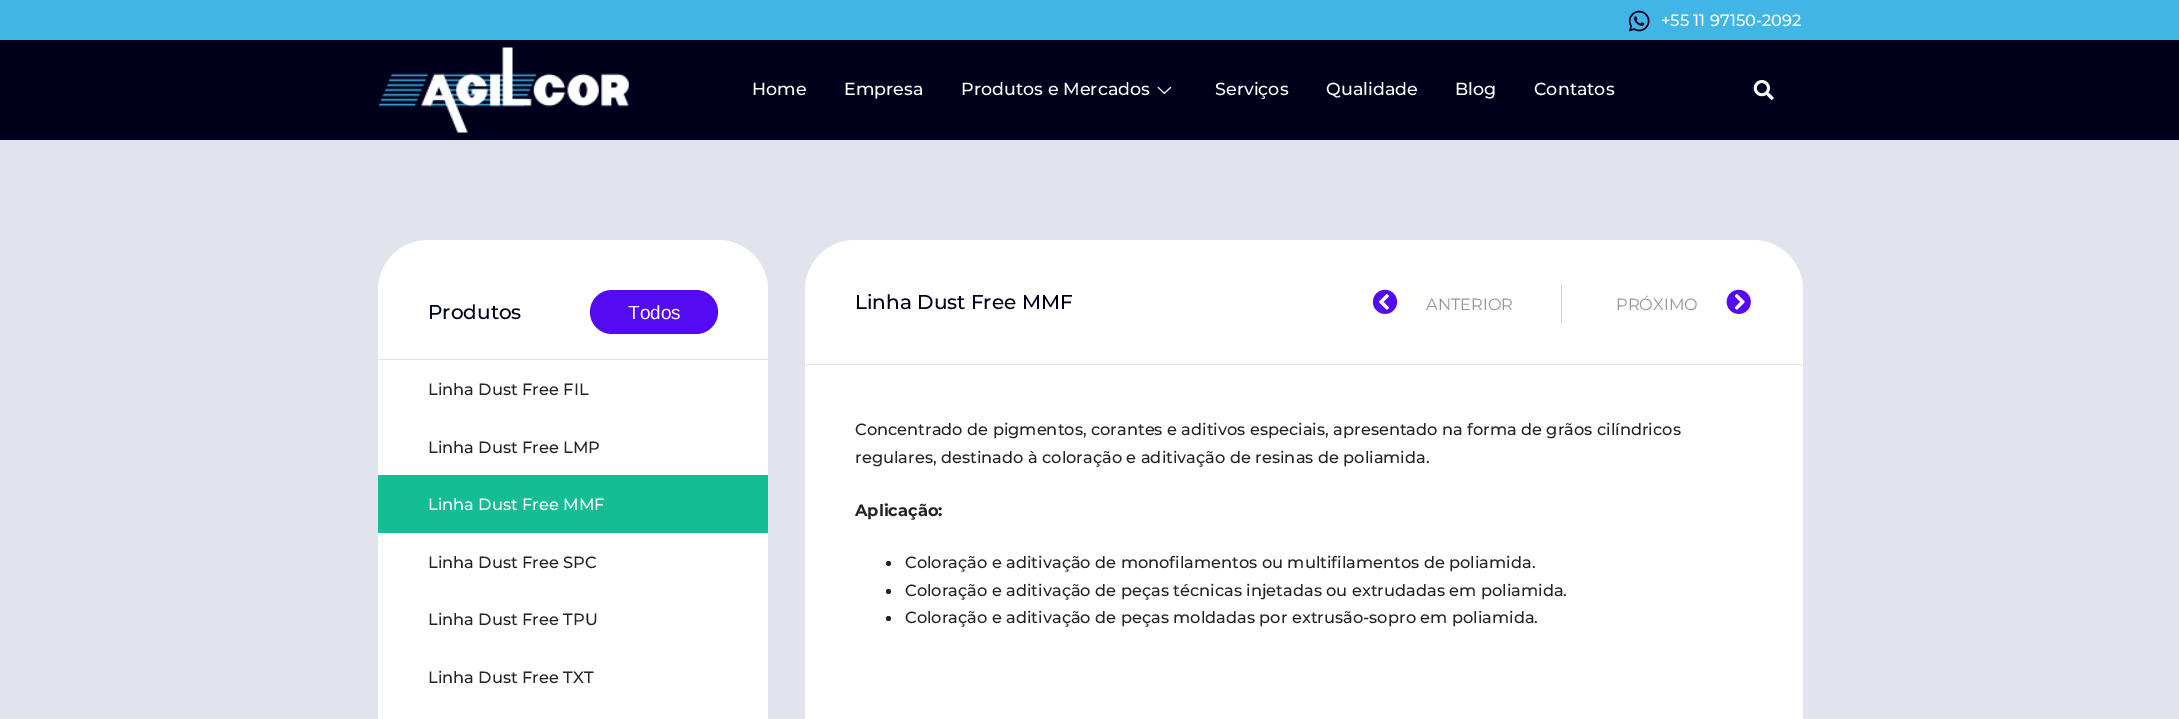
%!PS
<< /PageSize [2179 719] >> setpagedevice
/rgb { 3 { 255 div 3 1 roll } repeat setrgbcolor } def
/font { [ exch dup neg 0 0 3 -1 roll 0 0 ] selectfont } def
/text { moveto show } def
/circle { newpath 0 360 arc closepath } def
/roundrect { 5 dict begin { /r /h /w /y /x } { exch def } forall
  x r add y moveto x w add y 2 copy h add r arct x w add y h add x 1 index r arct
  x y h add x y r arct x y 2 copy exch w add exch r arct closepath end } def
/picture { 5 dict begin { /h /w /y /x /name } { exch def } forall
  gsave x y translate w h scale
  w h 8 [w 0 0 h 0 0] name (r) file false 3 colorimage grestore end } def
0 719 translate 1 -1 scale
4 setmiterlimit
65 182 230 rgb
0 0 2179 719 rectfill
(img_01.rgb) 1628 10 22 22 picture
0 0 28 rgb
0 40 2179 100 rectfill
(img_02.rgb) 378 47 251 86 picture
(img_03.rgb) 1157 86 15 8 picture
(img_04.rgb) 1753 80 21 20 picture
225 228 237 rgb
0 140 2179 579 rectfill
255 255 255 rgb
378 240 390 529 50 roundrect fill
225 228 237 rgb
378 359 390 1 rectfill
84 11 244 rgb
590 290 128 44 22 roundrect fill
21 188 148 rgb
378 475 390 58 rectfill
255 255 255 rgb
805 240 998 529 50 roundrect fill
225 228 237 rgb
805 364 998 1 rectfill
(img_05.rgb) 1373 289 25 25 picture
212 212 212 rgb
1561 283 1 42 rectfill
(img_06.rgb) 1726 289 25 25 picture
36 36 36 rgb
888.5 563.5 2.5 circle fill
888.5 591.5 2.5 circle fill
888.5 618.5 2.5 circle fill
/Montserrat-Medium 16.25 font
255 255 255 rgb
(+55 11 97150-2092) 1661 26 text
/Montserrat-Medium 17.5 font
(Home) 752 95 text
(Empresa) 844 95 text
(Produtos e Mercados) 961 95 text
(Serviços) 1215 95 text
(Qualidade) 1326 95 text
(Blog) 1455 95 text
(Contatos) 1534 95 text
/Montserrat-Medium 20 font
0 0 28 rgb
(Produtos) 428 319 text
/LiberationSans-Regular 19 font
255 255 255 rgb
(Todos) 628 319 text
/Montserrat-Medium 16.25 font
36 36 36 rgb
(Linha Dust Free FIL) 428 395 text
(Linha Dust Free LMP) 428 453 text
255 255 255 rgb
(Linha Dust Free MMF) 428 510 text
36 36 36 rgb
(Linha Dust Free SPC) 428 568 text
(Linha Dust Free TPU) 428 625 text
(Linha Dust Free TXT) 428 683 text
/Montserrat-Medium 20 font
0 0 28 rgb
(Linha Dust Free MMF) 855 309 text
/Montserrat-Regular 16.25 font
150 150 150 rgb
(ANTERIOR) 1426 310 text
(PRÓXIMO) 1616 310 text
/Montserrat-Medium 16.25 font
36 36 36 rgb
(Concentrado de pigmentos, corantes e aditivos especiais, apresentado na forma de grãos cilíndricos) 855 435 text
(regulares, destinado à coloração e aditivação de resinas de poliamida.) 855 463 text
/Montserrat-Bold 16.25 font
(Aplicação:) 855 516 text
/Montserrat-Medium 16.25 font
(Coloração e aditivação de monofilamentos ou multifilamentos de poliamida.) 905 568 text
(Coloração e aditivação de peças técnicas injetadas ou extrudadas em poliamida.) 905 596 text
(Coloração e aditivação de peças moldadas por extrusão-sopro em poliamida.) 905 623 text
showpage
